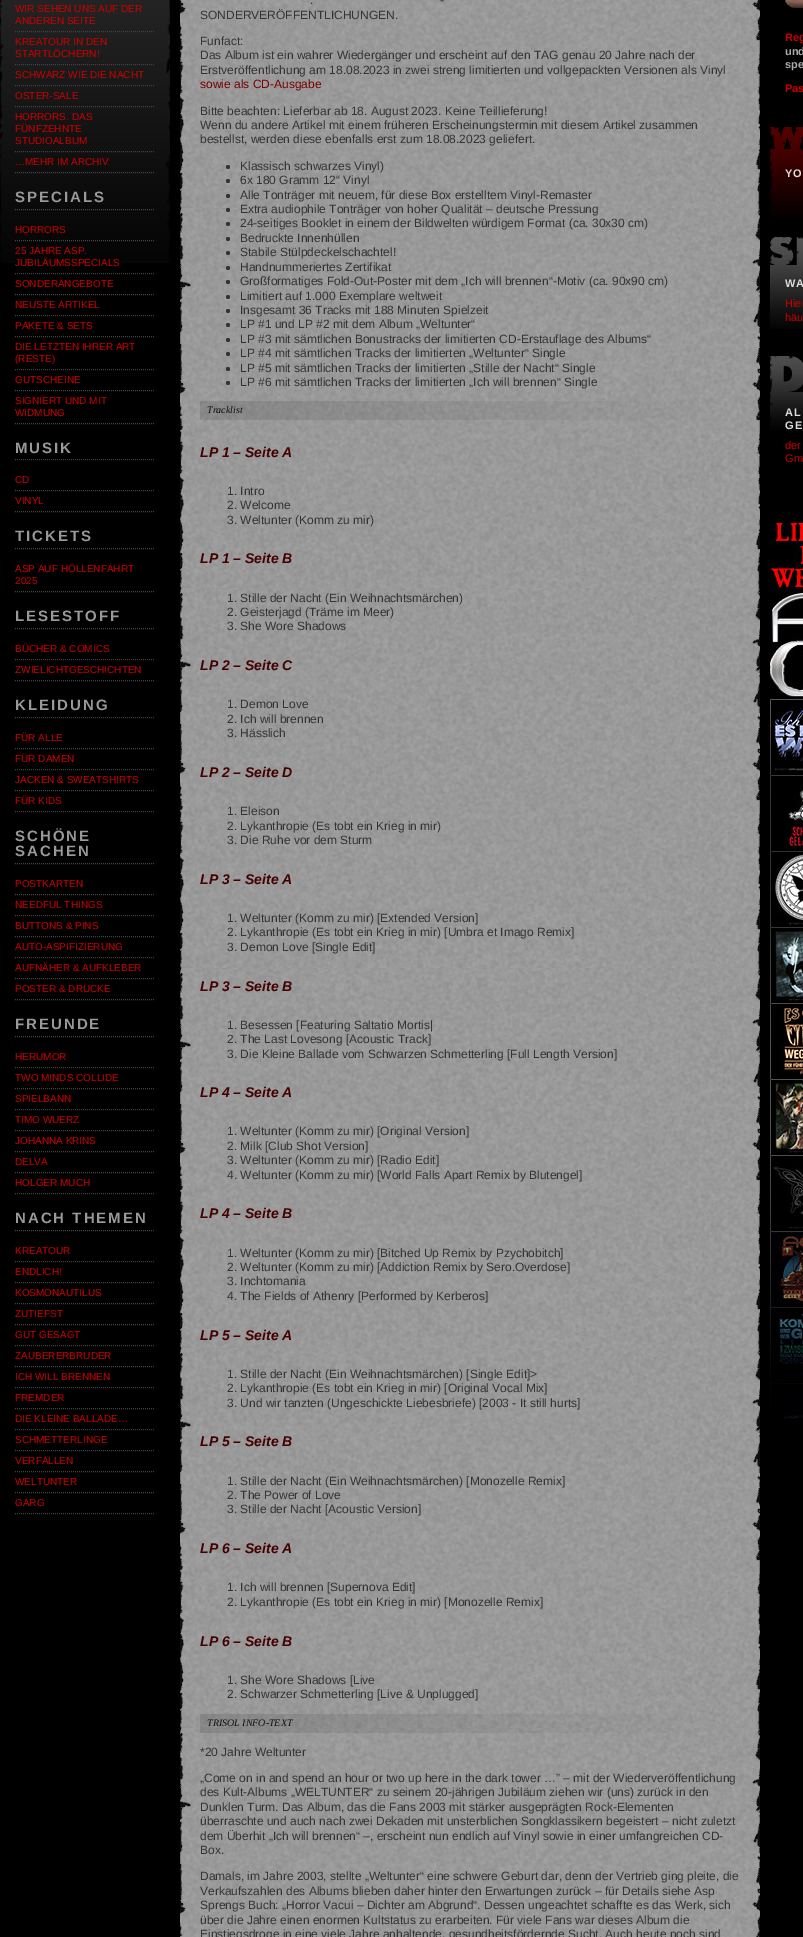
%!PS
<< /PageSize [803 1937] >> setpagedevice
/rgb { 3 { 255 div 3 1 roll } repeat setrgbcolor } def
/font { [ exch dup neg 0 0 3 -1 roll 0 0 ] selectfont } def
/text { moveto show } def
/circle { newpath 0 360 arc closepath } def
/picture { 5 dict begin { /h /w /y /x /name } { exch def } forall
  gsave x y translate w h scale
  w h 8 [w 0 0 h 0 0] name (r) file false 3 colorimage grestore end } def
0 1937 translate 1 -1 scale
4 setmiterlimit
0 0 0 rgb
0 0 803 1937 rectfill
(img_01.rgb) 0 0 170 263 picture
68 68 68 rgb
[1 1] 0 setdash
15 31.5 moveto 140 0 rlineto stroke
15 64.5 moveto 140 0 rlineto stroke
15 85.5 moveto 140 0 rlineto stroke
15 106.5 moveto 140 0 rlineto stroke
15 151.5 moveto 140 0 rlineto stroke
15 172.5 moveto 140 0 rlineto stroke
15 209.5 moveto 140 0 rlineto stroke
15 240.5 moveto 140 0 rlineto stroke
15 273.5 moveto 140 0 rlineto stroke
15 294.5 moveto 140 0 rlineto stroke
15 315.5 moveto 140 0 rlineto stroke
15 336.5 moveto 140 0 rlineto stroke
15 369.5 moveto 140 0 rlineto stroke
15 390.5 moveto 140 0 rlineto stroke
15 423.5 moveto 140 0 rlineto stroke
15 459.5 moveto 140 0 rlineto stroke
15 490.5 moveto 140 0 rlineto stroke
15 511.5 moveto 140 0 rlineto stroke
15 548.5 moveto 140 0 rlineto stroke
15 591.5 moveto 140 0 rlineto stroke
15 628.5 moveto 140 0 rlineto stroke
15 659.5 moveto 140 0 rlineto stroke
15 680.5 moveto 140 0 rlineto stroke
15 717.5 moveto 140 0 rlineto stroke
15 748.5 moveto 140 0 rlineto stroke
15 769.5 moveto 140 0 rlineto stroke
15 790.5 moveto 140 0 rlineto stroke
15 811.5 moveto 140 0 rlineto stroke
15 863.5 moveto 140 0 rlineto stroke
15 894.5 moveto 140 0 rlineto stroke
15 915.5 moveto 140 0 rlineto stroke
15 936.5 moveto 140 0 rlineto stroke
15 957.5 moveto 140 0 rlineto stroke
15 978.5 moveto 140 0 rlineto stroke
15 999.5 moveto 140 0 rlineto stroke
15 1036.5 moveto 140 0 rlineto stroke
15 1067.5 moveto 140 0 rlineto stroke
15 1088.5 moveto 140 0 rlineto stroke
15 1109.5 moveto 140 0 rlineto stroke
15 1130.5 moveto 140 0 rlineto stroke
15 1151.5 moveto 140 0 rlineto stroke
15 1172.5 moveto 140 0 rlineto stroke
15 1193.5 moveto 140 0 rlineto stroke
15 1230.5 moveto 140 0 rlineto stroke
15 1261.5 moveto 140 0 rlineto stroke
15 1282.5 moveto 140 0 rlineto stroke
15 1303.5 moveto 140 0 rlineto stroke
15 1324.5 moveto 140 0 rlineto stroke
15 1345.5 moveto 140 0 rlineto stroke
15 1366.5 moveto 140 0 rlineto stroke
15 1387.5 moveto 140 0 rlineto stroke
15 1408.5 moveto 140 0 rlineto stroke
15 1429.5 moveto 140 0 rlineto stroke
15 1450.5 moveto 140 0 rlineto stroke
15 1471.5 moveto 140 0 rlineto stroke
15 1492.5 moveto 140 0 rlineto stroke
15 1513.5 moveto 140 0 rlineto stroke
(img_02.rgb) 180 0 580 1937 picture
51 51 51 rgb
228 167 2 circle fill
228 181 2 circle fill
228 196 2 circle fill
228 210 2 circle fill
228 224 2 circle fill
228 239 2 circle fill
228 253 2 circle fill
228 268 2 circle fill
228 282 2 circle fill
228 297 2 circle fill
228 311 2 circle fill
228 325 2 circle fill
228 340 2 circle fill
228 354 2 circle fill
228 369 2 circle fill
228 383 2 circle fill
(img_03.rgb) 785 0 18 8 picture
(img_04.rgb) 770 127 33 92 picture
(img_05.rgb) 770 237 33 92 picture
(img_06.rgb) 770 356 33 75 picture
(img_07.rgb) 770 522 33 897 picture
/LiberationSans-Regular 10 font
204 0 0 rgb
(WIR SEHEN UNS AUF DER) 15 12 text
(ANDEREN SEITE) 15 24 text
(KREATOUR IN DEN) 15 45 text
(STARTLÖCHERN!) 15 57 text
(SCHWARZ WIE DIE NACHT) 15 78 text
(OSTER-SALE) 15 99 text
(HORRORS. DAS) 15 120 text
(FÜNFZEHNTE) 15 132 text
(STUDIOALBUM) 15 144 text
(…MEHR IM ARCHIV) 15 165 text
/LiberationSans-Bold 15 font
153 153 153 rgb
15 202 moveto 2 0 (SPECIALS) ashow
/LiberationSans-Regular 10 font
204 0 0 rgb
(HORRORS) 15 233 text
(25 JAHRE ASP.) 15 254 text
(JUBILÄUMSSPECIALS) 15 266 text
(SONDERANGEBOTE) 15 287 text
(NEUSTE ARTIKEL) 15 308 text
(PAKETE & SETS) 15 329 text
(DIE LETZTEN IHRER ART) 15 350 text
(\(RESTE\)) 15 362 text
(GUTSCHEINE) 15 383 text
(SIGNIERT UND MIT) 15 404 text
(WIDMUNG) 15 416 text
/LiberationSans-Bold 15 font
153 153 153 rgb
15 453 moveto 2 0 (MUSIK) ashow
/LiberationSans-Regular 10 font
204 0 0 rgb
(CD) 15 483 text
(VINYL) 15 504 text
/LiberationSans-Bold 15 font
153 153 153 rgb
15 541 moveto 2 0 (TICKETS) ashow
/LiberationSans-Regular 10 font
204 0 0 rgb
(ASP AUF HÖLLENFAHRT) 15 572 text
(2025) 15 584 text
/LiberationSans-Bold 15 font
153 153 153 rgb
15 621 moveto 2 0 (LESESTOFF) ashow
/LiberationSans-Regular 10 font
204 0 0 rgb
(BÜCHER & COMICS) 15 652 text
(ZWIELICHTGESCHICHTEN) 15 673 text
/LiberationSans-Bold 15 font
153 153 153 rgb
15 710 moveto 2 0 (KLEIDUNG) ashow
/LiberationSans-Regular 10 font
204 0 0 rgb
(FÜR ALLE) 15 741 text
(FÜR DAMEN) 15 762 text
(JACKEN & SWEATSHIRTS) 15 783 text
(FÜR KIDS) 15 804 text
/LiberationSans-Bold 15 font
153 153 153 rgb
15 841 moveto 2 0 (SCHÖNE) ashow
15 856 moveto 2 0 (SACHEN) ashow
/LiberationSans-Regular 10 font
204 0 0 rgb
(POSTKARTEN) 15 887 text
(NEEDFUL THINGS) 15 908 text
(BUTTONS & PINS) 15 929 text
(AUTO-ASPIFIZIERUNG) 15 950 text
(AUFNÄHER & AUFKLEBER) 15 971 text
(POSTER & DRUCKE) 15 992 text
/LiberationSans-Bold 15 font
153 153 153 rgb
15 1029 moveto 2 0 (FREUNDE) ashow
/LiberationSans-Regular 10 font
204 0 0 rgb
(HERUMOR) 15 1060 text
(TWO MINDS COLLIDE) 15 1081 text
(SPIELBANN) 15 1102 text
(TIMO WUERZ) 15 1123 text
(JOHANNA KRINS) 15 1144 text
(DELVA) 15 1165 text
(HOLGER MUCH) 15 1186 text
/LiberationSans-Bold 15 font
153 153 153 rgb
15 1223 moveto 2 0 (NACH THEMEN) ashow
/LiberationSans-Regular 10 font
204 0 0 rgb
(KREATOUR) 15 1254 text
(ENDLICH!) 15 1275 text
(KOSMONAUTILUS) 15 1296 text
(ZUTIEFST) 15 1317 text
(GUT GESAGT) 15 1338 text
(ZAUBERERBRUDER) 15 1359 text
(ICH WILL BRENNEN) 15 1380 text
(FREMDER) 15 1401 text
(DIE KLEINE BALLADE…) 15 1422 text
(SCHMETTERLINGE) 15 1443 text
(VERFALLEN) 15 1464 text
(WELTUNTER) 15 1485 text
(GARG) 15 1506 text
/LiberationSans-Regular 12 font
51 51 51 rgb
(-) 440 4 text
(.) 310 4 text
(SONDERVERÖFFENTLICHUNGEN.) 200 19 text
(Funfact:) 200 45 text
(Das Album ist ein wahrer Wiedergänger und erscheint auf den TAG genau 20 Jahre nach der) 200 59 text
(Erstveröffentlichung am 18.08.2023 in zwei streng limitierten und vollgepackten Versionen als Vinyl) 200 74 text
119 0 0 rgb
(sowie als CD-Ausgabe) 200 88 text
51 51 51 rgb
(Bitte beachten: Lieferbar ab 18. August 2023. Keine Teillieferung!) 200 115 text
(Wenn du andere Artikel mit einem früheren Erscheinungstermin mit diesem Artikel zusammen) 200 129 text
(bestellst, werden diese ebenfalls erst zum 18.08.2023 geliefert.) 200 143 text
(Klassisch schwarzes Vinyl\)) 240 170 text
(6x 180 Gramm 12“ Vinyl) 240 184 text
(Alle Tonträger mit neuem, für diese Box erstelltem Vinyl-Remaster) 240 199 text
(Extra audiophile Tonträger von hoher Qualität – deutsche Pressung) 240 213 text
(24-seitiges Booklet in einem der Bildwelten würdigem Format \(ca. 30x30 cm\)) 240 227 text
(Bedruckte Innenhüllen) 240 242 text
(Stabile Stülpdeckelschachtel!) 240 256 text
(Handnummeriertes Zertifikat) 240 271 text
(Großformatiges Fold-Out-Poster mit dem „Ich will brennen“-Motiv \(ca. 90x90 cm\)) 240 285 text
(Limitiert auf 1.000 Exemplare weltweit) 240 300 text
(Insgesamt 36 Tracks mit 188 Minuten Spielzeit) 240 314 text
(LP #1 und LP #2 mit dem Album „Weltunter“) 240 328 text
(LP #3 mit sämtlichen Bonustracks der limitierten CD-Erstauflage des Albums“) 240 343 text
(LP #4 mit sämtlichen Tracks der limitierten „Weltunter“ Single) 240 357 text
(LP #5 mit sämtlichen Tracks der limitierten „Stille der Nacht“ Single) 240 372 text
(LP #6 mit sämtlichen Tracks der limitierten „Ich will brennen“ Single) 240 386 text
/LiberationSerif-Italic 10 font
17 17 17 rgb
(Tracklist) 207 413 text
/LiberationSans-BoldItalic 14 font
68 0 0 rgb
(LP 1 – Seite A) 200 457 text
/LiberationSans-Regular 12 font
51 51 51 rgb
(1. Intro) 227 495 text
(2. Welcome) 227 509 text
(3. Weltunter \(Komm zu mir\)) 227 524 text
/LiberationSans-BoldItalic 14 font
68 0 0 rgb
(LP 1 – Seite B) 200 563 text
/LiberationSans-Regular 12 font
51 51 51 rgb
(1. Stille der Nacht \(Ein Weihnachtsmärchen\)) 227 602 text
(2. Geisterjagd \(Träme im Meer\)) 227 616 text
(3. She Wore Shadows) 227 630 text
/LiberationSans-BoldItalic 14 font
68 0 0 rgb
(LP 2 – Seite C) 200 670 text
/LiberationSans-Regular 12 font
51 51 51 rgb
(1. Demon Love) 227 708 text
(2. Ich will brennen) 227 723 text
(3. Hässlich) 227 737 text
/LiberationSans-BoldItalic 14 font
68 0 0 rgb
(LP 2 – Seite D) 200 777 text
/LiberationSans-Regular 12 font
51 51 51 rgb
(1. Eleison) 227 815 text
(2. Lykanthropie \(Es tobt ein Krieg in mir\)) 227 830 text
(3. Die Ruhe vor dem Sturm) 227 844 text
/LiberationSans-BoldItalic 14 font
68 0 0 rgb
(LP 3 – Seite A) 200 884 text
/LiberationSans-Regular 12 font
51 51 51 rgb
(1. Weltunter \(Komm zu mir\) [Extended Version]) 227 922 text
(2. Lykanthropie \(Es tobt ein Krieg in mir\) [Umbra et Imago Remix]) 227 936 text
(3. Demon Love [Single Edit]) 227 951 text
/LiberationSans-BoldItalic 14 font
68 0 0 rgb
(LP 3 – Seite B) 200 991 text
/LiberationSans-Regular 12 font
51 51 51 rgb
(1. Besessen [Featuring Saltatio Mortis|) 227 1029 text
(2. The Last Lovesong [Acoustic Track]) 227 1043 text
(3. Die Kleine Ballade vom Schwarzen Schmetterling [Full Length Version]) 227 1058 text
/LiberationSans-BoldItalic 14 font
68 0 0 rgb
(LP 4 – Seite A) 200 1097 text
/LiberationSans-Regular 12 font
51 51 51 rgb
(1. Weltunter \(Komm zu mir\) [Original Version]) 227 1135 text
(2. Milk [Club Shot Version]) 227 1150 text
(3. Weltunter \(Komm zu mir\) [Radio Edit]) 227 1164 text
(4. Weltunter \(Komm zu mir\) [World Falls Apart Remix by Blutengel]) 227 1179 text
/LiberationSans-BoldItalic 14 font
68 0 0 rgb
(LP 4 – Seite B) 200 1218 text
/LiberationSans-Regular 12 font
51 51 51 rgb
(1. Weltunter \(Komm zu mir\) [Bitched Up Remix by Pzychobitch]) 227 1257 text
(2. Weltunter \(Komm zu mir\) [Addiction Remix by Sero.Overdose]) 227 1271 text
(3. Inchtomania) 227 1285 text
(4. The Fields of Athenry [Performed by Kerberos]) 227 1300 text
/LiberationSans-BoldItalic 14 font
68 0 0 rgb
(LP 5 – Seite A) 200 1340 text
/LiberationSans-Regular 12 font
51 51 51 rgb
(1. Stille der Nacht \(Ein Weihnachtsmärchen\) [Single Edit]>) 227 1378 text
(2. Lykanthropie \(Es tobt ein Krieg in mir\) [Original Vocal Mix]) 227 1392 text
(3. Und wir tanzten \(Ungeschickte Liebesbriefe\) [2003 - It still hurts]) 227 1407 text
/LiberationSans-BoldItalic 14 font
68 0 0 rgb
(LP 5 – Seite B) 200 1446 text
/LiberationSans-Regular 12 font
51 51 51 rgb
(1. Stille der Nacht \(Ein Weihnachtsmärchen\) [Monozelle Remix]) 227 1485 text
(2. The Power of Love) 227 1499 text
(3. Stille der Nacht [Acoustic Version]) 227 1513 text
/LiberationSans-BoldItalic 14 font
68 0 0 rgb
(LP 6 – Seite A) 200 1553 text
/LiberationSans-Regular 12 font
51 51 51 rgb
(1. Ich will brennen [Supernova Edit]) 227 1591 text
(2. Lykanthropie \(Es tobt ein Krieg in mir\) [Monozelle Remix]) 227 1606 text
/LiberationSans-BoldItalic 14 font
68 0 0 rgb
(LP 6 – Seite B) 200 1646 text
/LiberationSans-Regular 12 font
51 51 51 rgb
(1. She Wore Shadows [Live) 227 1684 text
(2. Schwarzer Schmetterling [Live & Unplugged]) 227 1698 text
/LiberationSerif-Italic 10 font
17 17 17 rgb
(TRISOL INFO-TEXT) 207 1726 text
/LiberationSans-Regular 12 font
51 51 51 rgb
(*20 Jahre Weltunter) 200 1756 text
(„Come on in and spend an hour or two up here in the dark tower …” – mit der Wiederveröffentlichung) 200 1782 text
(des Kult-Albums „WELTUNTER“ zu seinem 20-jährigen Jubiläum ziehen wir \(uns\) zurück in den) 200 1796 text
(Dunklen Turm. Das Album, das die Fans 2003 mit stärker ausgeprägten Rock-Elementen) 200 1811 text
(überraschte und auch nach zwei Dekaden mit unsterblichen Songklassikern begeistert – nicht zuletzt) 200 1825 text
(dem Überhit „Ich will brennen“ –, erscheint nun endlich auf Vinyl sowie in einer umfangreichen CD-) 200 1840 text
(Box.) 200 1854 text
(Damals, im Jahre 2003, stellte „Weltunter“ eine schwere Geburt dar, denn der Vertrieb ging pleite, die) 200 1880 text
(Verkaufszahlen des Albums blieben daher hinter den Erwartungen zurück – für Details siehe Asp) 200 1895 text
(Sprengs Buch: „Horror Vacui – Dichter am Abgrund“. Dessen ungeachtet schaffte es das Werk, sich) 200 1909 text
(über die Jahre einen enormen Kultstatus zu erarbeiten. Für viele Fans war dieses Album die) 200 1924 text
(Einstiegsdroge in eine viele Jahre anhaltende, gesundheitsfördernde Sucht. Auch heute noch sind) 200 1938 text
/LiberationSans-Bold 11 font
204 0 0 rgb
(Reg) 785 41 text
170 170 170 rgb
(und) 785 55 text
(spe) 785 68 text
204 0 0 rgb
(Pas) 785 92 text
221 221 221 rgb
785 177 moveto 1 0 (YO) ashow
785 287 moveto 1 0 (WA) ashow
/LiberationSans-Regular 11 font
204 0 0 rgb
(Hier) 785 307 text
(häu) 785 321 text
/LiberationSans-Bold 11 font
221 221 221 rgb
785 416 moveto 1 0 (AL) ashow
785 429 moveto 1 0 (GE) ashow
/LiberationSans-Regular 11 font
204 0 0 rgb
(der) 785 449 text
(Gm) 785 462 text
showpage
